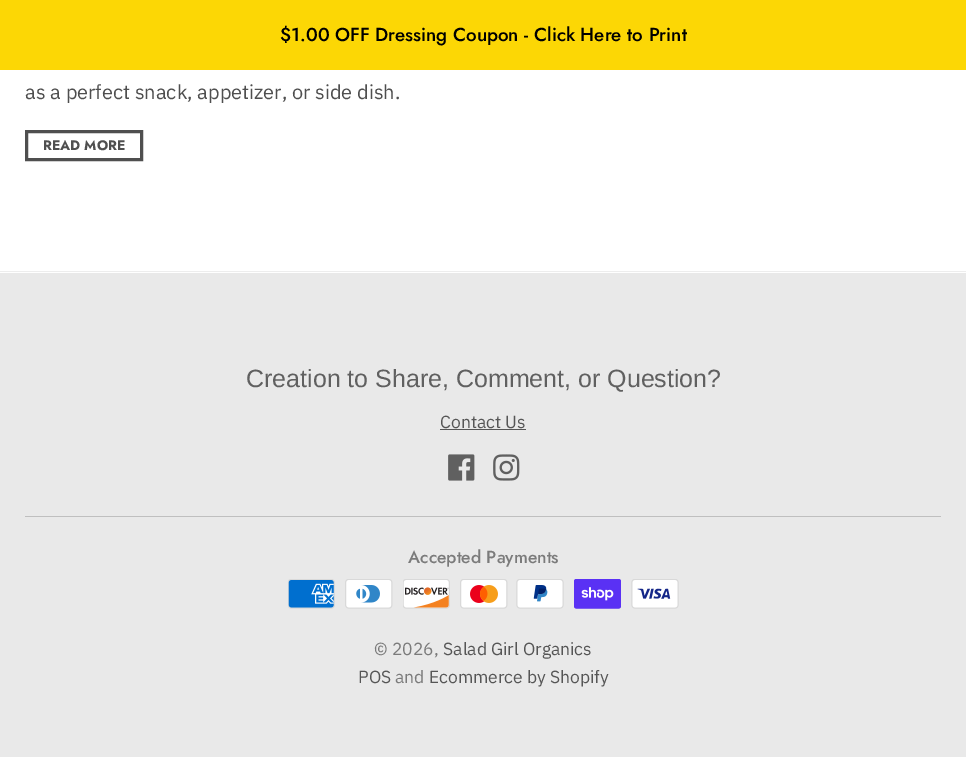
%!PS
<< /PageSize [966 757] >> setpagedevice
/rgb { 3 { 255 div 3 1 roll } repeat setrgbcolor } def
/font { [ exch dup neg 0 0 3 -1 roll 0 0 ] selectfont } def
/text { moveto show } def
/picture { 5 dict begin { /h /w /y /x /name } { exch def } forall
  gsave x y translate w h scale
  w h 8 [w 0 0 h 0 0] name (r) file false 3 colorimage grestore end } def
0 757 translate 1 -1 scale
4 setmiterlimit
255 255 255 rgb
0 0 966 757 rectfill
252 215 5 rgb
0 0 966 70 rectfill
237 237 237 rgb
0 271 966 1 rectfill
79 79 79 rgb
3 setlinewidth
26.5 131.5 115 28 rectstroke
233 233 233 rgb
0 273 966 484 rectfill
86 86 86 rgb
440 429 86 1 rectfill
(img_01.rgb) 448 454 27 27 picture
(img_02.rgb) 493 454 27 27 picture
191 191 191 rgb
25 516 916 1 rectfill
(img_03.rgb) 288 579 47 30 picture
(img_04.rgb) 345 579 48 30 picture
(img_05.rgb) 403 579 47 30 picture
(img_06.rgb) 460 579 48 30 picture
(img_07.rgb) 516 579 48 30 picture
(img_08.rgb) 574 579 47 30 picture
(img_09.rgb) 631 579 48 30 picture
/Jost-Medium 18.75 font
0 0 0 rgb
($1.00 OFF Dressing Coupon - Click Here to Print) 280 41 text
/IBMPlexSans-Regular 20 font
79 79 79 rgb
(as a perfect snack, appetizer, or side dish.) 25 99 text
/Jost-Bold 13.75 font
(READ MORE) 43 150 text
/Arimo-Regular 25 font
96 96 96 rgb
(Creation to Share, Comment, or Question?) 246 387 text
/IBMPlexSans-Regular 17.5 font
86 86 86 rgb
(Contact Us) 440 428 text
/Jost-Medium 17.5 font
123 123 123 rgb
(Accepted Payments) 408 563 text
/IBMPlexSans-Regular 17.5 font
(© 2026,) 374 655 text
86 86 86 rgb
(Salad Girl Organics) 443 655 text
(POS) 358 683 text
123 123 123 rgb
(and) 395 683 text
86 86 86 rgb
(Ecommerce by Shopify) 429 683 text
showpage
